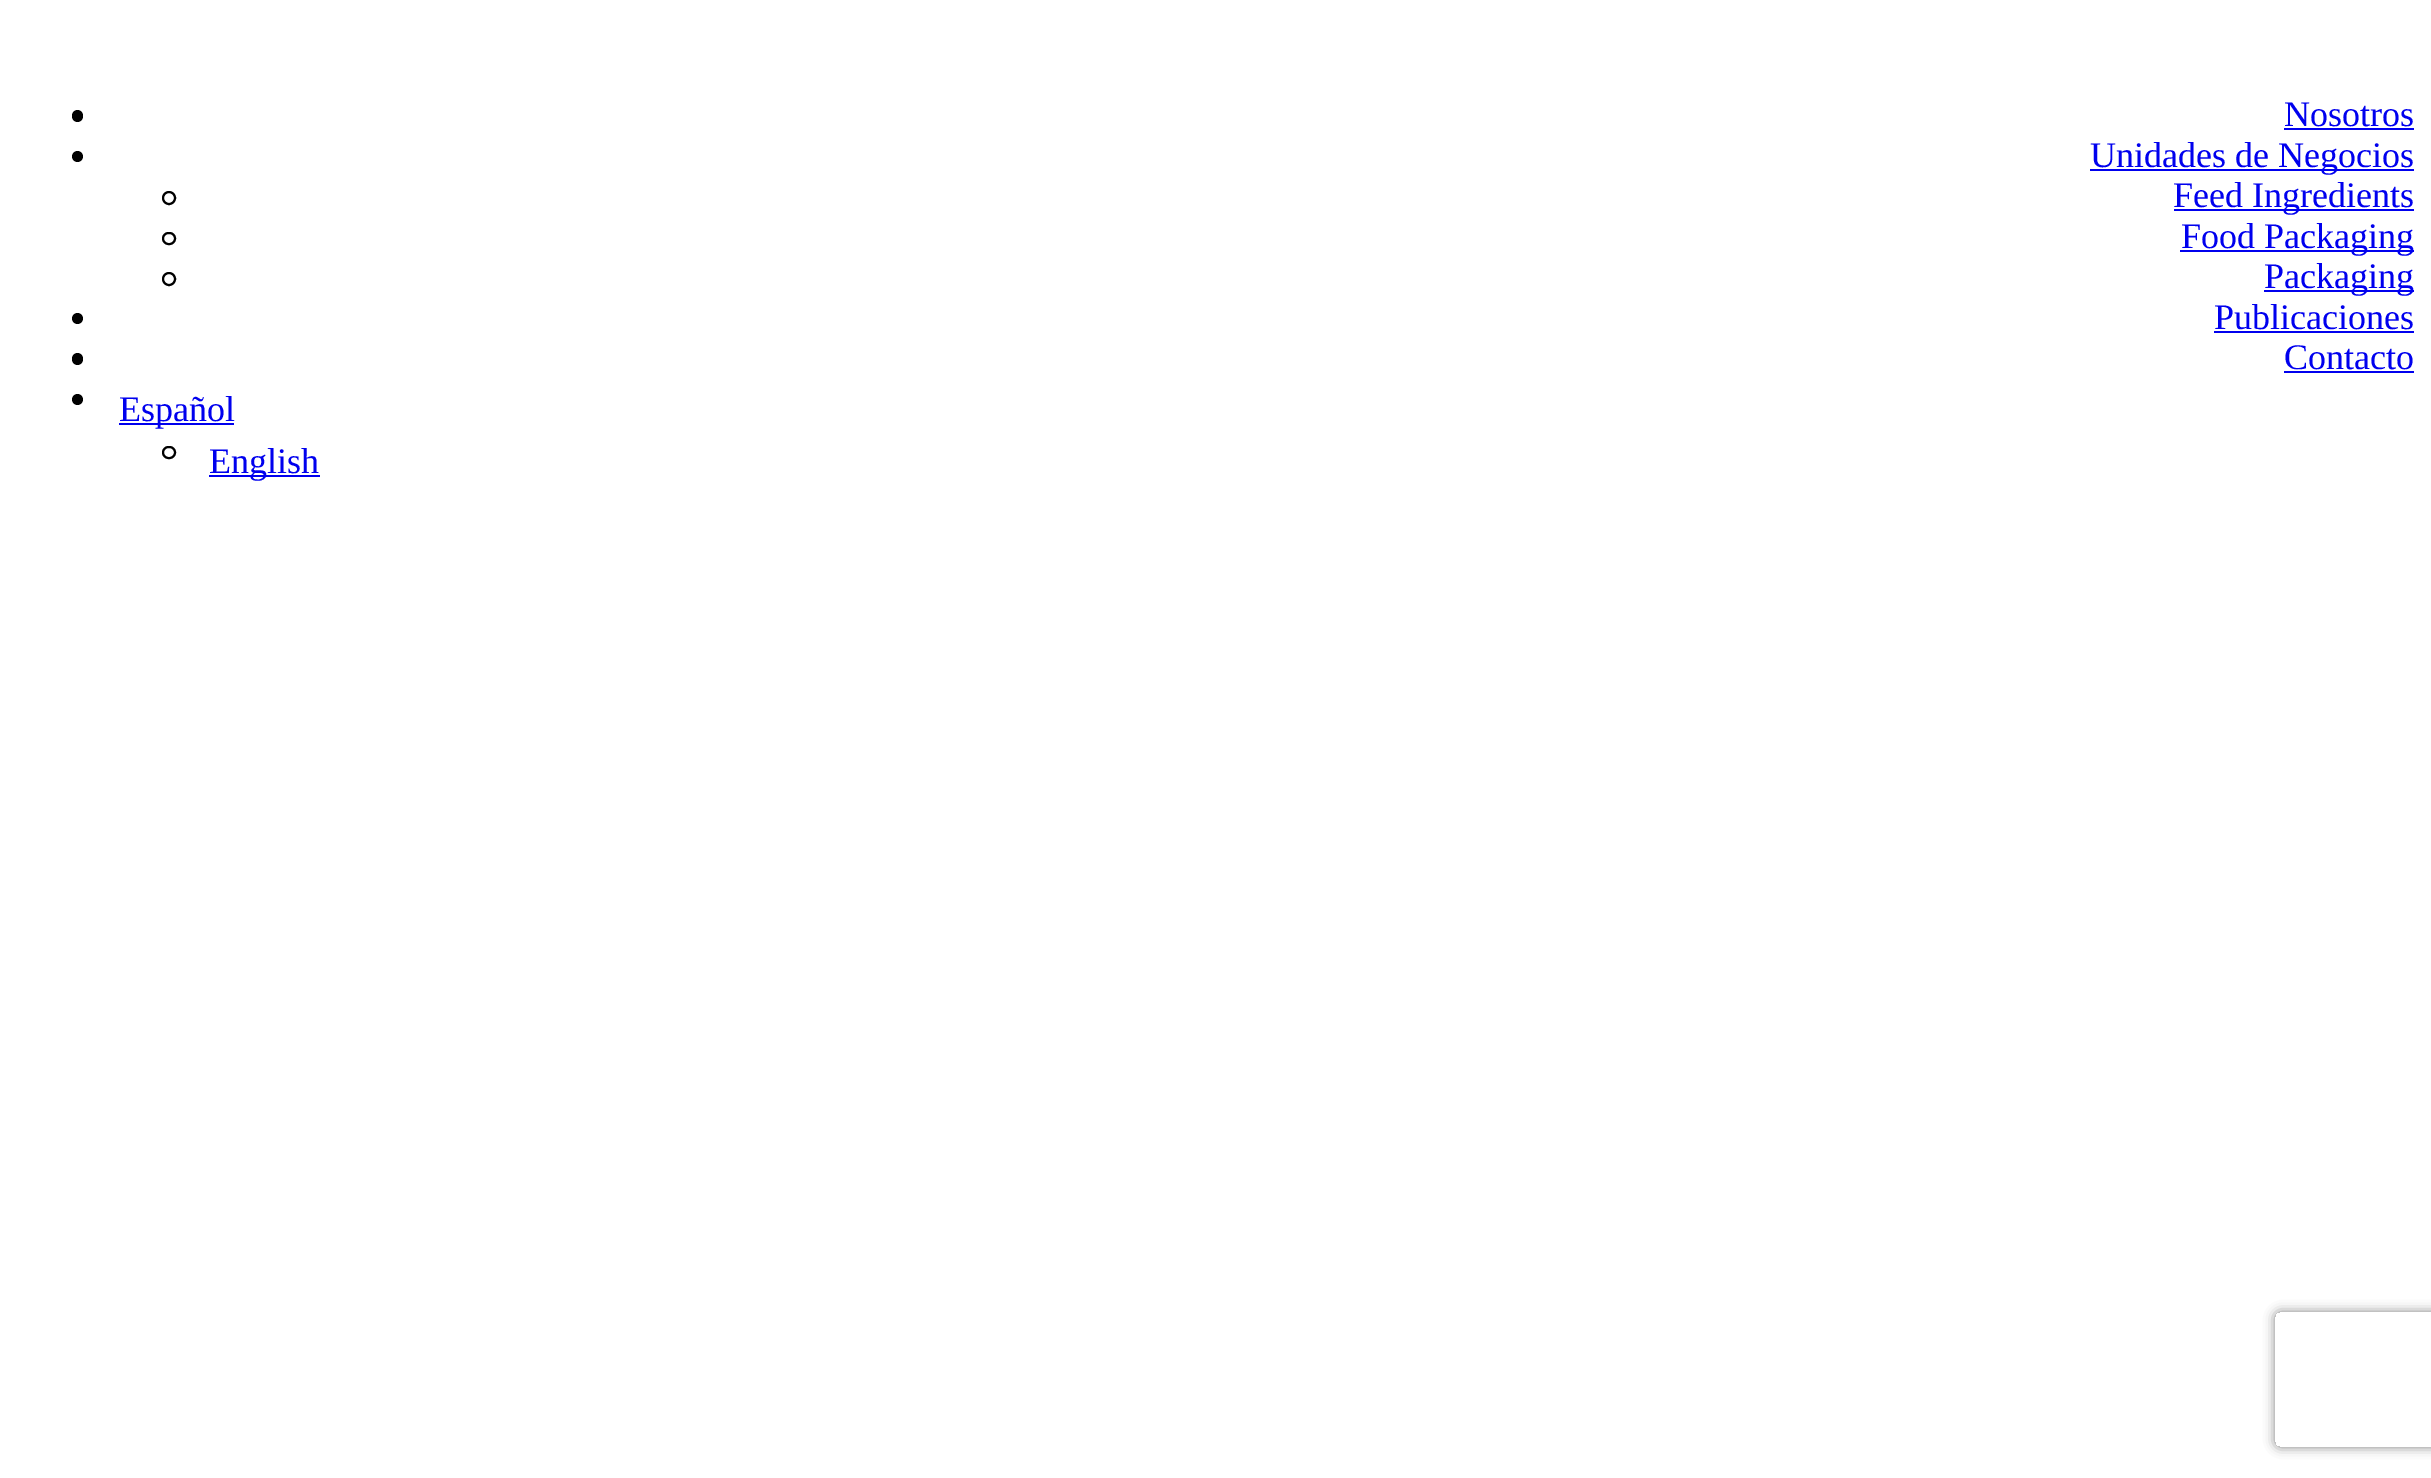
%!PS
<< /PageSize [2431 1478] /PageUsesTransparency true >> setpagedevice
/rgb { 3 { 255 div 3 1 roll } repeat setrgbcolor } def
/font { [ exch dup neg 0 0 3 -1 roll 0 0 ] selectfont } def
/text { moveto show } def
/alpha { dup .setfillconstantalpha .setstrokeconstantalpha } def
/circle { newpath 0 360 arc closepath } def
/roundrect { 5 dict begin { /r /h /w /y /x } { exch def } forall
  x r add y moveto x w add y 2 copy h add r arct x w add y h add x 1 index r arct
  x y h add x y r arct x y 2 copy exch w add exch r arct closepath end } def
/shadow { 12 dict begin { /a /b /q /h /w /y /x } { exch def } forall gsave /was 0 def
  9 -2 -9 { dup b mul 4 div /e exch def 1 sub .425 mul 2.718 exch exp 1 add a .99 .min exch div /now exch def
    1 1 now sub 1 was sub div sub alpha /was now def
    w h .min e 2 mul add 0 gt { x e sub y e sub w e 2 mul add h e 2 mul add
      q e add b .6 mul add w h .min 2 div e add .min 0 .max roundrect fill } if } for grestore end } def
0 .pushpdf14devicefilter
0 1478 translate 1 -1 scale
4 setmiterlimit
255 255 255 rgb
0 0 2431 1478 rectfill
0 0 0 rgb
72 110 11 12 5.5 roundrect fill
0 0 238 rgb
2284 128 130 2 rectfill
0 0 0 rgb
77.5 156.5 5.5 circle fill
0 0 238 rgb
2090 169 324 2 rectfill
0 0 0 rgb
2 setlinewidth
169 198 6 circle stroke
0 0 238 rgb
2174 209 240 2 rectfill
0 0 0 rgb
163 233 12 11 5.5 roundrect stroke
0 0 238 rgb
2180 250 234 2 rectfill
0 0 0 rgb
169 279 6 circle stroke
0 0 238 rgb
2264 290 150 2 rectfill
0 0 0 rgb
77.5 318.5 5.5 circle fill
0 0 238 rgb
2214 331 200 2 rectfill
0 0 0 rgb
72 353 11 12 5.5 roundrect fill
0 0 238 rgb
2284 371 130 2 rectfill
0 0 0 rgb
77.5 399.5 5.5 circle fill
0 0 238 rgb
119 423 115 2 rectfill
0 0 0 rgb
163 447 12 11 5.5 roundrect stroke
0 0 238 rgb
209 475 111 2 rectfill
gsave
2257 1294 moveto 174 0 rlineto 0 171 rlineto -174 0 rlineto closepath 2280 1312 moveto 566 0 rlineto 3 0 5 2 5 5 rcurveto 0 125 rlineto 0 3 -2 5 -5 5 rcurveto -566 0 rlineto -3 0 -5 -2 -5 -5 rcurveto 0 -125 rlineto 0 -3 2 -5 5 -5 rcurveto closepath eoclip newpath
128 128 128 rgb
2275 1312 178 135 5 5.5 1 shadow
grestore
/LiberationSerif-Regular 36 font
(Nosotros) 2284 126 text
(Unidades de Negocios) 2090 167 text
(Feed Ingredients) 2173 207 text
(Food Packaging) 2181 248 text
(Packaging) 2264 288 text
(Publicaciones) 2214 329 text
(Contacto) 2284 369 text
(Español) 119 421 text
(English) 209 473 text
.poppdf14devicefilter showpage
